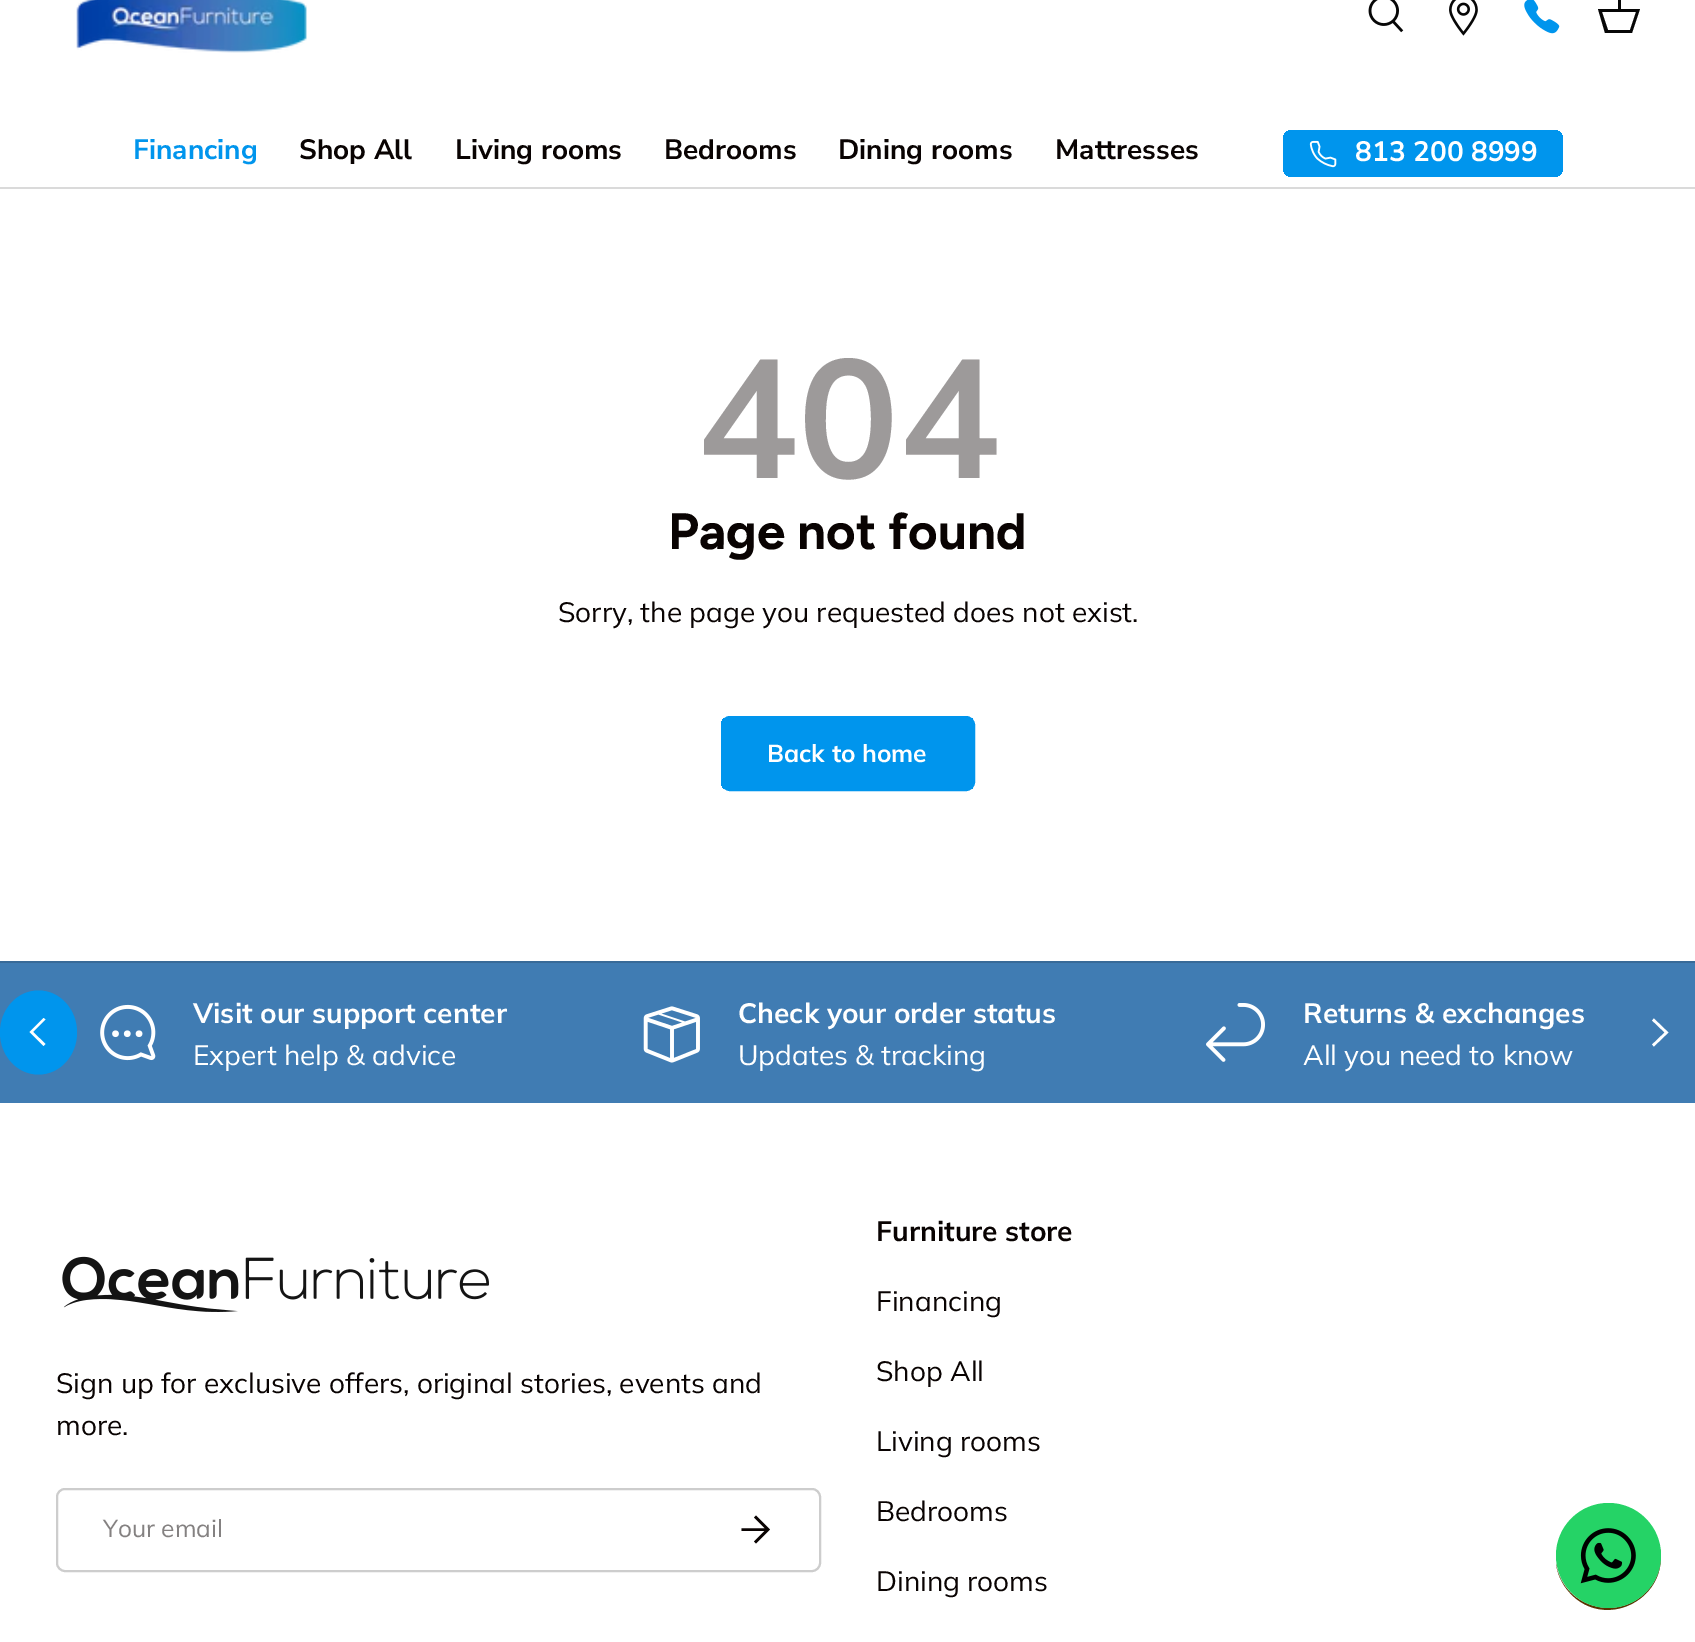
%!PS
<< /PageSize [1695 1642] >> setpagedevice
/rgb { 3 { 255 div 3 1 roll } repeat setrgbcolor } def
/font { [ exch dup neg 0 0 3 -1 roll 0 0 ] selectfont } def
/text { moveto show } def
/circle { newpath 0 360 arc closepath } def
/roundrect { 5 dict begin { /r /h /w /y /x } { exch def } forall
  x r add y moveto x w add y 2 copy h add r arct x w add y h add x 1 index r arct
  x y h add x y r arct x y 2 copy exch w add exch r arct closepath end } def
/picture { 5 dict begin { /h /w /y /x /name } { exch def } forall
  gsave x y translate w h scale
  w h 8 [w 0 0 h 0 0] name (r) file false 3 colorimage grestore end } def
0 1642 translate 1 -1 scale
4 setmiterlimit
255 255 255 rgb
0 0 1695 1642 rectfill
218 218 218 rgb
0 187 1695 2 rectfill
(img_01.rgb) 76 0 231 53 picture
(img_02.rgb) 1368 0 36 33 picture
(img_03.rgb) 1449 0 29 36 picture
(img_04.rgb) 1524 0 36 34 picture
7 7 7 rgb
1618 9 moveto 0 -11 rlineto 3 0 rlineto 0 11 rlineto 19 0 rlineto -8 24 rlineto -27 0 rlineto -7 -24 rlineto closepath 1602 12 moveto 6 18 rlineto 22 0 rlineto 6 -18 rlineto closepath fill
gsave 1283 130 280 47 9 roundrect clip newpath
<< /ShadingType 2 /ColorSpace /DeviceRGB /Coords [742 53 1544 253] /Extend [true true] /Function << /FunctionType 3 /Domain [0 1] /Functions [<< /FunctionType 2 /Domain [0 1] /C0 [0.204 0.671 0.945] /C1 [0.204 0.671 0.945] /N 1 >> << /FunctionType 2 /Domain [0 1] /C0 [0 0.584 0.929] /C1 [0 0.584 0.929] /N 1 >>] /Bounds [0.6] /Encode [0 1 0 1] >> >> shfill grestore
(img_05.rgb) 1309 140 28 28 picture
gsave
721 716 254 75 9 roundrect clip newpath
gsave 721 718 moveto 252 0 rlineto 0 71 rlineto -252 0 rlineto closepath clip newpath
<< /ShadingType 2 /ColorSpace /DeviceRGB /Coords [236 663 959 844] /Extend [true true] /Function << /FunctionType 3 /Domain [0 1] /Functions [<< /FunctionType 2 /Domain [0 1] /C0 [0.204 0.671 0.945] /C1 [0.204 0.671 0.945] /N 1 >> << /FunctionType 2 /Domain [0 1] /C0 [0 0.584 0.929] /C1 [0 0.584 0.929] /N 1 >>] /Bounds [0.6] /Encode [0 1 0 1] >> >> shfill grestore
grestore
0 149 237 rgb
2 setlinewidth
722 717 252 73 8 roundrect stroke
64 124 179 rgb
0 963 1695 140 rectfill
56 106 152 rgb
0 961 1695 2 rectfill
0 149 237 rgb
38.5 990.5 moveto 21.5 0 38.5 19 38.5 42 rcurveto 0 23 -17 42 -38.5 42 rcurveto -21.5 0 -38.5 -19 -38.5 -42 rcurveto 0 -23 17 -42 38.5 -42 rcurveto closepath fill
255 255 255 rgb
29.5 1032 moveto 14 -14 rlineto 2 1.5 rlineto -12.5 12.5 rlineto 12.5 12 rlineto -2 2 rlineto closepath fill
2.6 setlinewidth
1653 1019.5 moveto 13.5 13 rlineto -13.5 13 rlineto stroke
(img_06.rgb) 100 1004 56 57 picture
(img_07.rgb) 643 1006 57 57 picture
(img_08.rgb) 1206 1003 59 59 picture
(img_09.rgb) 62 1256 427 56 picture
205 205 205 rgb
2 setlinewidth
57 1489 763 82 8 roundrect stroke
9 3 2 rgb
2.6 setlinewidth
741.5 1529.5 moveto 25.5 0 rlineto 755 1516.5 moveto 13 13 rlineto -13 13 rlineto stroke
89 51 0 rgb
1556 1564 moveto 2 13 8 24 18 33 rcurveto 36 32 94 0 86 -48 rcurveto 2 13 -1 26 -8 36 rcurveto -27 39 -88 26 -96 -21 rcurveto closepath fill
37 211 102 rgb
1608.5 1555.5 52.5 circle fill
(img_10.rgb) 1580 1528 56 56 picture
/NunitoSans-Bold 28 font
0 149 237 rgb
(Financing) 133 159 text
9 3 2 rgb
(Shop All) 299 159 text
(Living rooms) 455 159 text
(Bedrooms) 664 159 text
(Dining rooms) 838 159 text
(Mattresses) 1055 159 text
255 255 255 rgb
(813 200 8999) 1355 161 text
/Muli-Bold 168 font
157 154 154 rgb
(404) 697 478 text
/Figtree-Bold 51 font
9 3 2 rgb
(Page not found) 668 549 text
/Muli-Regular 28 font
(Sorry, the page you requested does not exist.) 558 622 text
/Muli-Bold 24.5 font
255 255 255 rgb
(Back to home) 767 762 text
/Muli-Bold 28 font
(Visit our support center) 193 1023 text
/Muli-Regular 28 font
(Expert help & advice) 193 1065 text
/Muli-Bold 28 font
(Check your order status) 738 1023 text
/Muli-Regular 28 font
(Updates & tracking) 738 1065 text
/Muli-Bold 28 font
(Returns & exchanges) 1303 1023 text
/Muli-Regular 28 font
(All you need to know) 1303 1065 text
9 3 2 rgb
(Sign up for exclusive offers, original stories, events and) 56 1393 text
(more.) 56 1435 text
/Muli-Regular 24.5 font
132 129 129 rgb
(Your email) 103 1537 text
/Muli-Bold 28 font
9 3 2 rgb
(Furniture store) 876 1241 text
/Muli-Regular 28 font
(Financing) 876 1311 text
(Shop All) 876 1381 text
(Living rooms) 876 1451 text
(Bedrooms) 876 1521 text
(Dining rooms) 876 1591 text
showpage
